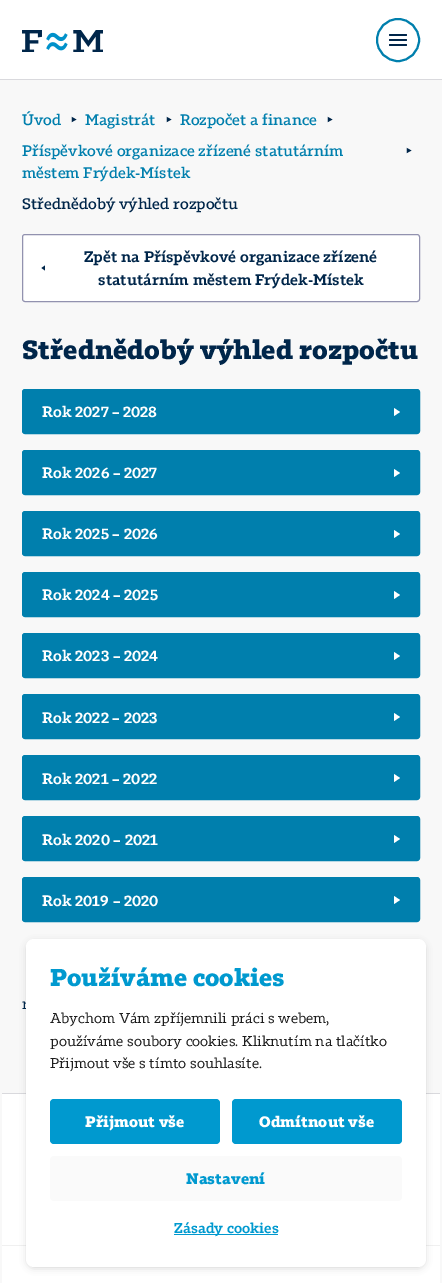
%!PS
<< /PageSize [442 1283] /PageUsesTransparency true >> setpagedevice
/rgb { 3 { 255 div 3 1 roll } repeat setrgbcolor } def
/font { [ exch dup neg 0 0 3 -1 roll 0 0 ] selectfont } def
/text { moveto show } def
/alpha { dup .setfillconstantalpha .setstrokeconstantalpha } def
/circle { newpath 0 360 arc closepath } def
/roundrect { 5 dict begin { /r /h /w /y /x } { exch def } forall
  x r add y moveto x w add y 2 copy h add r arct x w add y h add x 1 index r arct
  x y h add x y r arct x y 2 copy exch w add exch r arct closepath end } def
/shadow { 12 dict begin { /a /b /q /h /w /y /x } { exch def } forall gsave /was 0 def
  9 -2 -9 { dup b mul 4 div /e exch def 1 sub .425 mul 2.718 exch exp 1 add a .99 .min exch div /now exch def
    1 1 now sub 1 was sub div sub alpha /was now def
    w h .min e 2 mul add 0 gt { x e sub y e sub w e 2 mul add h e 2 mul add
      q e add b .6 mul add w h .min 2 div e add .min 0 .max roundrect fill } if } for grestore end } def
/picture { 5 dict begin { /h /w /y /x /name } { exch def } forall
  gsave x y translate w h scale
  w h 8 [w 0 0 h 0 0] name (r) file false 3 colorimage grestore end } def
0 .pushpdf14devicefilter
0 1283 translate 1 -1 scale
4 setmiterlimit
255 255 255 rgb
0 0 442 1283 rectfill
(img_01.rgb) 22 30 81 22 picture
0 127 173 rgb
2 setlinewidth
398 40 21 circle stroke
0 38 74 rgb
389 34 18 2 1 roundrect fill
389 39 18 2 1 roundrect fill
389 44 18 2 1 roundrect fill
217 217 221 rgb
0 79 442 1 rectfill
248 248 248 rgb
0 80 442 1203 rectfill
255 255 255 rgb
22.5 234.5 397 67 2.5 roundrect gsave fill grestore
146 146 175 rgb
1 setlinewidth
stroke
0 38 74 rgb
41.5 268 moveto 3.5 -2.5 rlineto 0 5 rlineto closepath fill
0 127 173 rgb
22.5 389.5 397 44 2.5 roundrect gsave fill grestore
stroke
255 255 255 rgb
400 412 moveto -6 4 rlineto 0 -8 rlineto closepath fill
0 127 173 rgb
22.5 450.5 397 44 2.5 roundrect gsave fill grestore
stroke
255 255 255 rgb
400 473 moveto -6 4 rlineto 0 -8 rlineto closepath fill
0 127 173 rgb
22.5 511.5 397 44 2.5 roundrect gsave fill grestore
stroke
255 255 255 rgb
400 534 moveto -6 4 rlineto 0 -8 rlineto closepath fill
0 127 173 rgb
22.5 572.5 397 44 2.5 roundrect gsave fill grestore
stroke
255 255 255 rgb
400 595 moveto -6 4 rlineto 0 -8 rlineto closepath fill
0 127 173 rgb
22.5 633.5 397 44 2.5 roundrect gsave fill grestore
stroke
255 255 255 rgb
400 656 moveto -6 4 rlineto 0 -8 rlineto closepath fill
0 127 173 rgb
22.5 694.5 397 44 2.5 roundrect gsave fill grestore
stroke
255 255 255 rgb
400 717 moveto -6 4 rlineto 0 -8 rlineto closepath fill
0 127 173 rgb
22.5 755.5 397 44 2.5 roundrect gsave fill grestore
stroke
255 255 255 rgb
400 778 moveto -6 4 rlineto 0 -8 rlineto closepath fill
0 127 173 rgb
22.5 816.5 397 44 2.5 roundrect gsave fill grestore
stroke
255 255 255 rgb
400 839 moveto -6 4 rlineto 0 -8 rlineto closepath fill
0 127 173 rgb
22.5 877.5 397 44 2.5 roundrect gsave fill grestore
stroke
255 255 255 rgb
400 900 moveto -6 4 rlineto 0 -8 rlineto closepath fill
240 240 240 rgb
2 1245 438 1 rectfill
217 217 221 rgb
2 1093 438 1 rectfill
255 255 255 rgb
2 1094 438 151 rectfill
2 1246 438 37 rectfill
0 0 0 rgb
28 943 396 324 6 4 0.2 shadow
/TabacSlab-Medium 15 font
0 127 173 rgb
(Úvod) 22 125 text
/TabacSlab-Medium 7 font
0 38 74 rgb
(▶) 71 122 text
/TabacSlab-Medium 15 font
0 127 173 rgb
(Magistrát) 85 125 text
/TabacSlab-Medium 7 font
0 38 74 rgb
(▶) 166 122 text
/TabacSlab-Medium 15 font
0 127 173 rgb
(Rozpočet a finance) 180 125 text
/TabacSlab-Medium 7 font
0 38 74 rgb
(▶) 327 122 text
/TabacSlab-Medium 15 font
0 127 173 rgb
(Příspěvkové organizace zřízené statutárním) 22 156 text
/TabacSlab-Medium 7 font
0 38 74 rgb
(▶) 406 153 text
/TabacSlab-Medium 15 font
0 127 173 rgb
(městem Frýdek-Místek) 22 178 text
0 38 74 rgb
(Střednědobý výhled rozpočtu) 22 209 text
/TabacSlab-SemiBold 15 font
(Zpět na Příspěvkové organizace zřízené) 84 262 text
(statutárním městem Frýdek-Místek) 98 285 text
/TabacSlab-Bold 26.1 font
(Střednědobý výhled rozpočtu) 22 359 text
/TabacSlab-SemiBold 15 font
255 255 255 rgb
(Rok 2027 – 2028) 42 417 text
(Rok 2026 – 2027) 42 478 text
(Rok 2025 – 2026) 42 539 text
(Rok 2024 – 2025) 42 600 text
(Rok 2023 – 2024) 42 661 text
(Rok 2022 – 2023) 42 723 text
(Rok 2021 – 2022) 42 784 text
(Rok 2020 – 2021) 42 845 text
(Rok 2019 – 2020) 42 906 text
/TabacSlab-Regular 15 font
0 38 74 rgb
(r) 22 1009 text
255 255 255 rgb
26 939 400 328 8 roundrect fill
/TabacSlab-Bold 24 font
0 153 207 rgb
(Používáme cookies) 50 986 text
/TabacSlab-Regular 14 font
29 29 29 rgb
(Abychom Vám zpříjemnili práci s webem,) 50 1023 text
(používáme soubory cookies. Kliknutím na tlačítko) 50 1046 text
(Přijmout vše s tímto souhlasíte.) 50 1068 text
0 153 207 rgb
50 1099 170 45 4 roundrect fill
/TabacSlab-Bold 15 font
255 255 255 rgb
(Přijmout vše) 85 1127 text
0 153 207 rgb
232 1099 170 45 4 roundrect fill
255 255 255 rgb
(Odmítnout vše) 259 1127 text
250 250 250 rgb
50 1156 352 45 4 roundrect fill
0 153 207 rgb
(Nastavení) 186 1184 text
174 1234 104 1 rectfill
/TabacSlab-SemiBold 14 font
(Zásady cookies) 174 1233 text
.poppdf14devicefilter showpage
